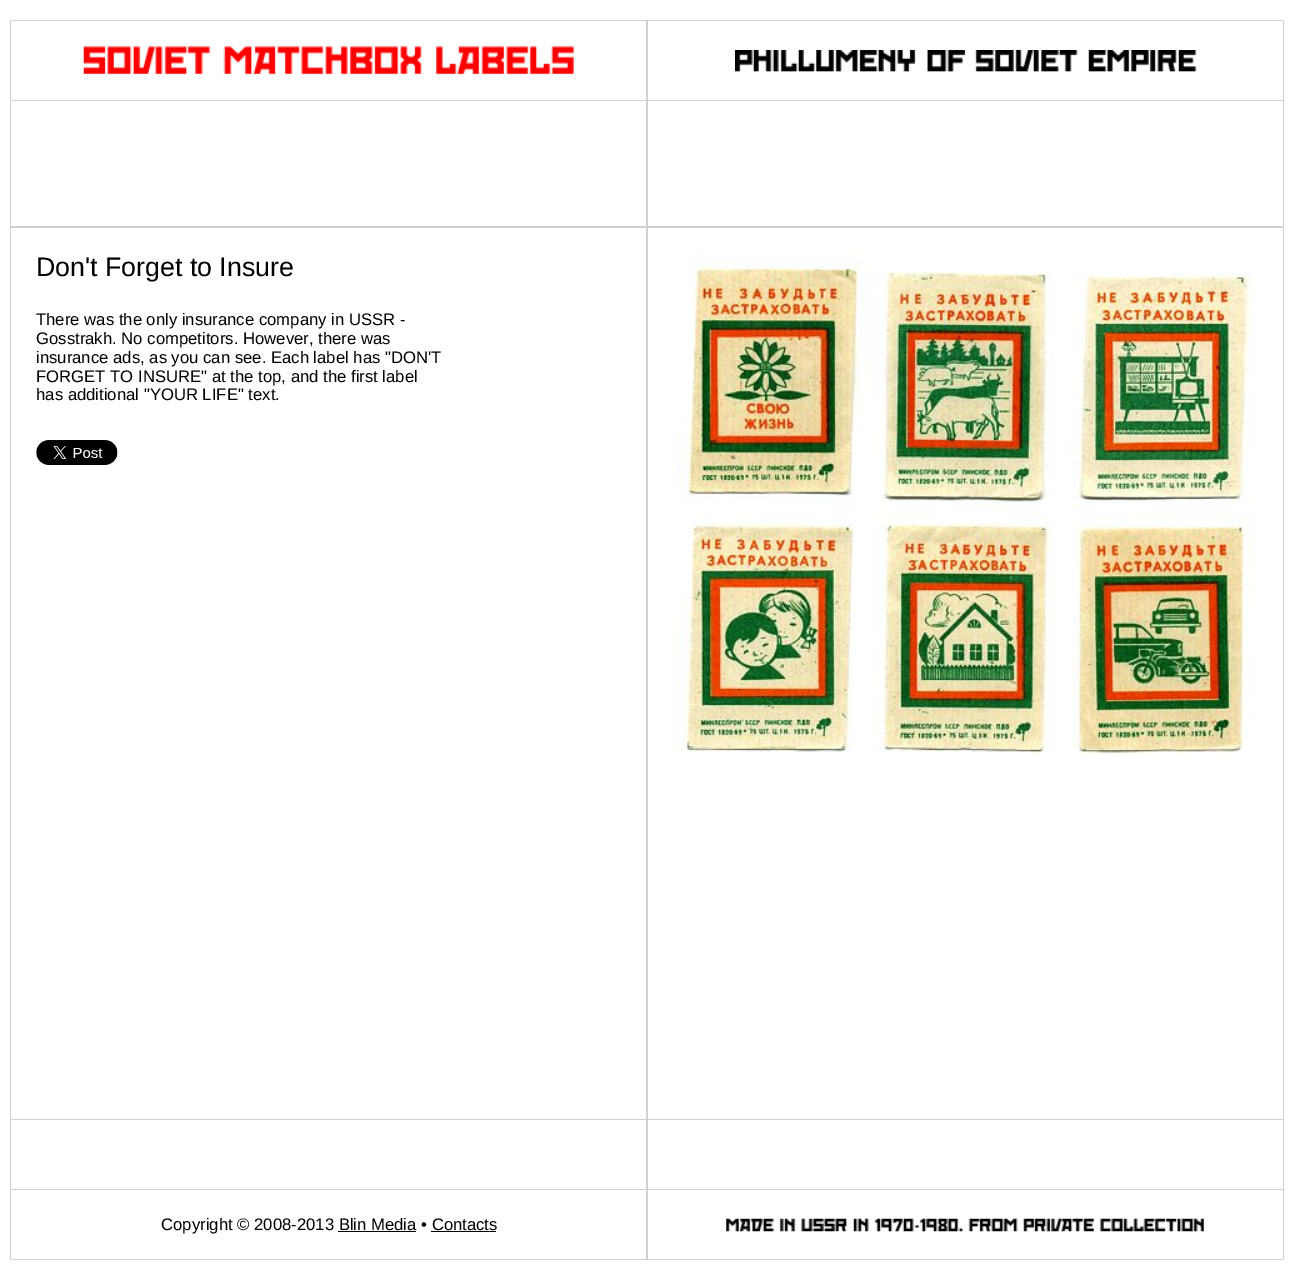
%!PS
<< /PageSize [1291 1280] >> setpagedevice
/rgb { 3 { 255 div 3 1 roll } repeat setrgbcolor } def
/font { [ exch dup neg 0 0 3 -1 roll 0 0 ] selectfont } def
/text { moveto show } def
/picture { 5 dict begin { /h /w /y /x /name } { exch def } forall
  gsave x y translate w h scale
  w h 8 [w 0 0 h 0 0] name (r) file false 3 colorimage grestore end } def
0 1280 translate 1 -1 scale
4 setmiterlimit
255 255 255 rgb
0 0 1291 1280 rectfill
208 208 208 rgb
10 20 1274 1240 rectfill
255 255 255 rgb
11 21 635 79 rectfill
(img_01.rgb) 83 46 491 29 picture
648 21 635 79 rectfill
(img_02.rgb) 735 50 462 22 picture
11 101 635 125 rectfill
648 101 635 125 rectfill
11 228 635 891 rectfill
(img_03.rgb) 36 440 82 25 picture
648 228 635 891 rectfill
(img_04.rgb) 672 253 581 501 picture
11 1120 635 69 rectfill
648 1120 635 69 rectfill
11 1190 635 69 rectfill
0 0 0 rgb
338 1231 78 1 rectfill
431 1231 65 1 rectfill
255 255 255 rgb
648 1190 635 69 rectfill
(img_05.rgb) 726 1218 478 14 picture
/LiberationSans-Regular 26.75 font
0 0 0 rgb
(Don't Forget to Insure) 36 276 text
/LiberationSans-Regular 16.7 font
(There was the only insurance company in USSR -) 36 325 text
(Gosstrakh. No competitors. However, there was) 36 344 text
(insurance ads, as you can see. Each label has "DON'T) 36 363 text
(FORGET TO INSURE" at the top, and the first label) 36 382 text
(has additional "YOUR LIFE" text.) 36 400 text
(Copyright © 2008-2013 Blin Media • Contacts) 161 1230 text
showpage
